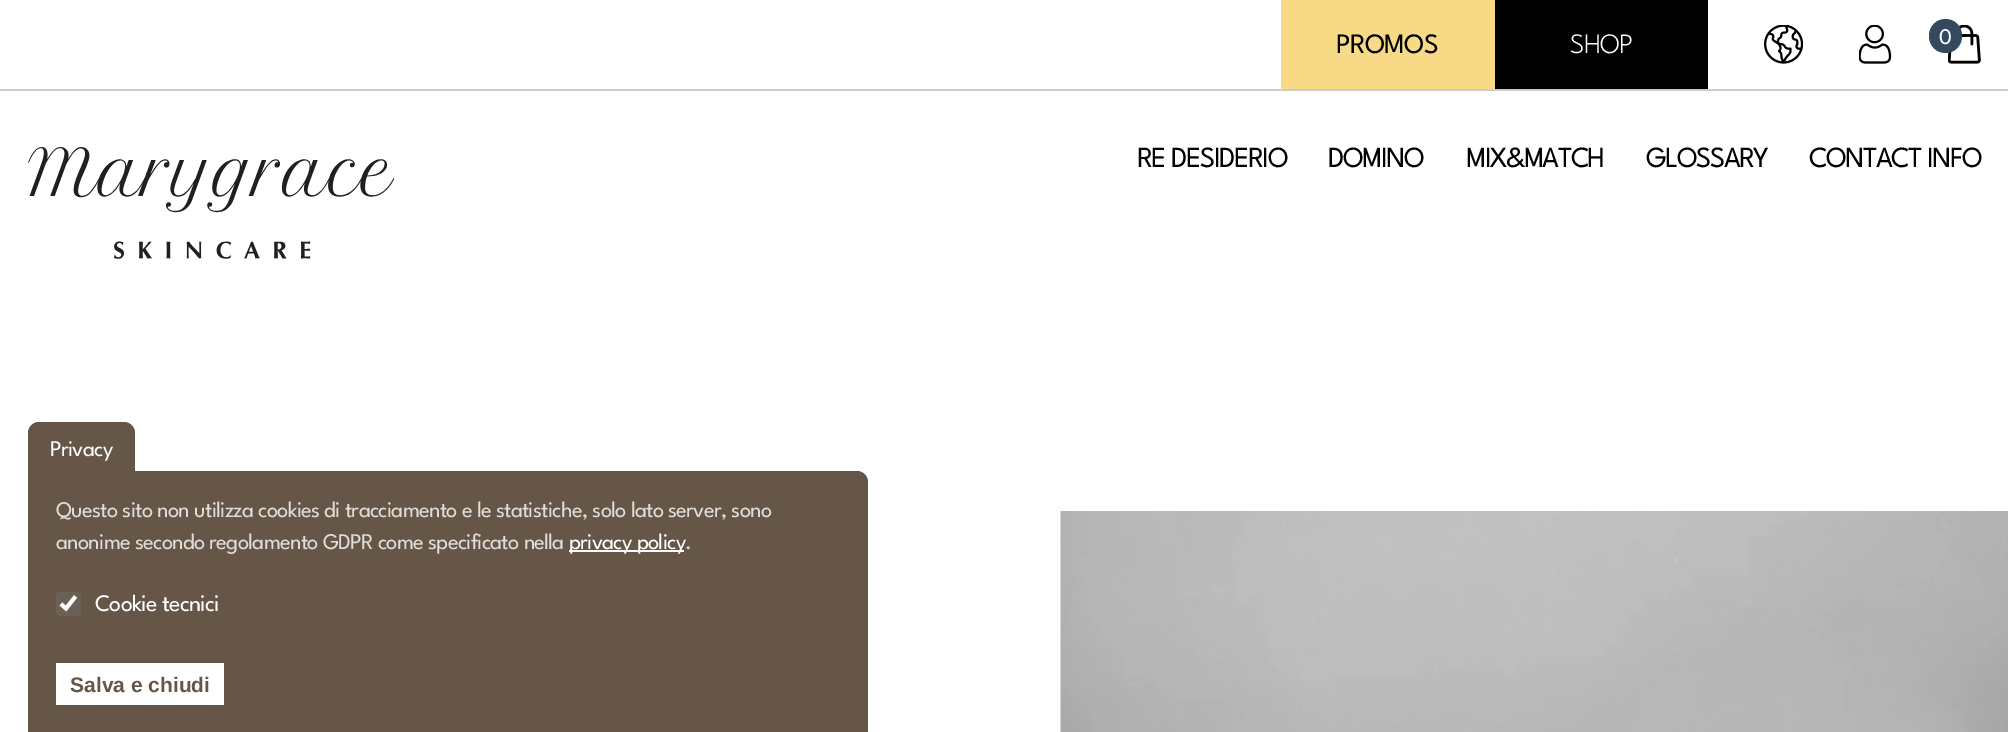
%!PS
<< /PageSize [2008 732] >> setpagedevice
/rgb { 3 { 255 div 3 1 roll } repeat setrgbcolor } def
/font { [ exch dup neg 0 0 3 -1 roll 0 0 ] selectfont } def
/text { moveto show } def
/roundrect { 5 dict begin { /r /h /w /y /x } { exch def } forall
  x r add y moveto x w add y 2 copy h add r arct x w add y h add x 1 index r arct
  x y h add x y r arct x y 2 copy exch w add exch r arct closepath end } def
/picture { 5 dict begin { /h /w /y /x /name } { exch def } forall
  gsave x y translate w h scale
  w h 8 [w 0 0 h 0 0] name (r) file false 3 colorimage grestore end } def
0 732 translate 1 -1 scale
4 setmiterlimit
255 255 255 rgb
0 0 2008 732 rectfill
204 204 204 rgb
0 89 2008 2 rectfill
248 218 134 rgb
1281 0 214 89 rectfill
0 0 0 rgb
1495 0 213 89 rectfill
(img_01.rgb) 1764 25 39 39 picture
(img_02.rgb) 1859 25 33 39 picture
(img_03.rgb) 1948 25 33 39 picture
52 73 94 rgb
1929 19 33 34 16.5 roundrect fill
(img_04.rgb) 28 147 367 112 picture
102 86 71 rgb
28 471 moveto 829 0 rlineto 6 0 11 5 11 11 rcurveto 0 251 rlineto -840 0 rlineto closepath fill
39 422 moveto 85 0 rlineto 6 0 11 5 11 11 rcurveto 0 40 rlineto -107 0 rlineto 0 -40 rlineto 0 -6 5 -11 11 -11 rcurveto closepath fill
255 255 255 rgb
569 550 115 2 rectfill
107 96 85 rgb
56 592 25 24 4 roundrect fill
255 255 255 rgb
3.9 setlinewidth
61 604 moveto 5 4.5 rlineto 9.5 -12 rlineto stroke
56 663 168 42 rectfill
(img_05.rgb) 1060 511 948 221 picture
/LeagueSpartan-Regular 28 font
0 0 0 rgb
1336 53 moveto -0.7 0 (PROMOS) ashow
/LeagueSpartan-Light 28 font
255 255 255 rgb
1570 53 moveto -0.7 0 (SHOP) ashow
/LeagueSpartan-Regular 22.4 font
1939 44 moveto -0.7 0 (0) ashow
/LeagueSpartan-Bold 28 font
0 0 0 rgb
1137 167 moveto -0.7 0 (RE DESIDERIO) ashow
1328 167 moveto -0.7 0 (DOMINO) ashow
1466 167 moveto -0.7 0 (MIX&MATCH) ashow
1646 167 moveto -0.7 0 (GLOSSARY) ashow
1809 167 moveto -0.7 0 (CONTACT INFO) ashow
/LeagueSpartan-Regular 22.4 font
255 255 255 rgb
50 456 moveto -0.7 0 (Privacy) ashow
224 221 218 rgb
56 517 moveto -0.7 0 (Questo sito non utilizza cookies di tracciamento e le statistiche, solo lato server, sono) ashow
56 549 moveto -0.7 0 (anonime secondo regolamento GDPR come specificato nella) ashow
255 255 255 rgb
569 549 moveto -0.7 0 (privacy policy) ashow
224 221 218 rgb
685 549 moveto -0.7 0 (.) ashow
/LeagueSpartan-Regular 23.75 font
255 255 255 rgb
95 611 moveto -0.7 0 (Cookie tecnici) ashow
/LiberationSans-Bold 21 font
102 86 71 rgb
(Salva e chiudi) 70 692 text
showpage
